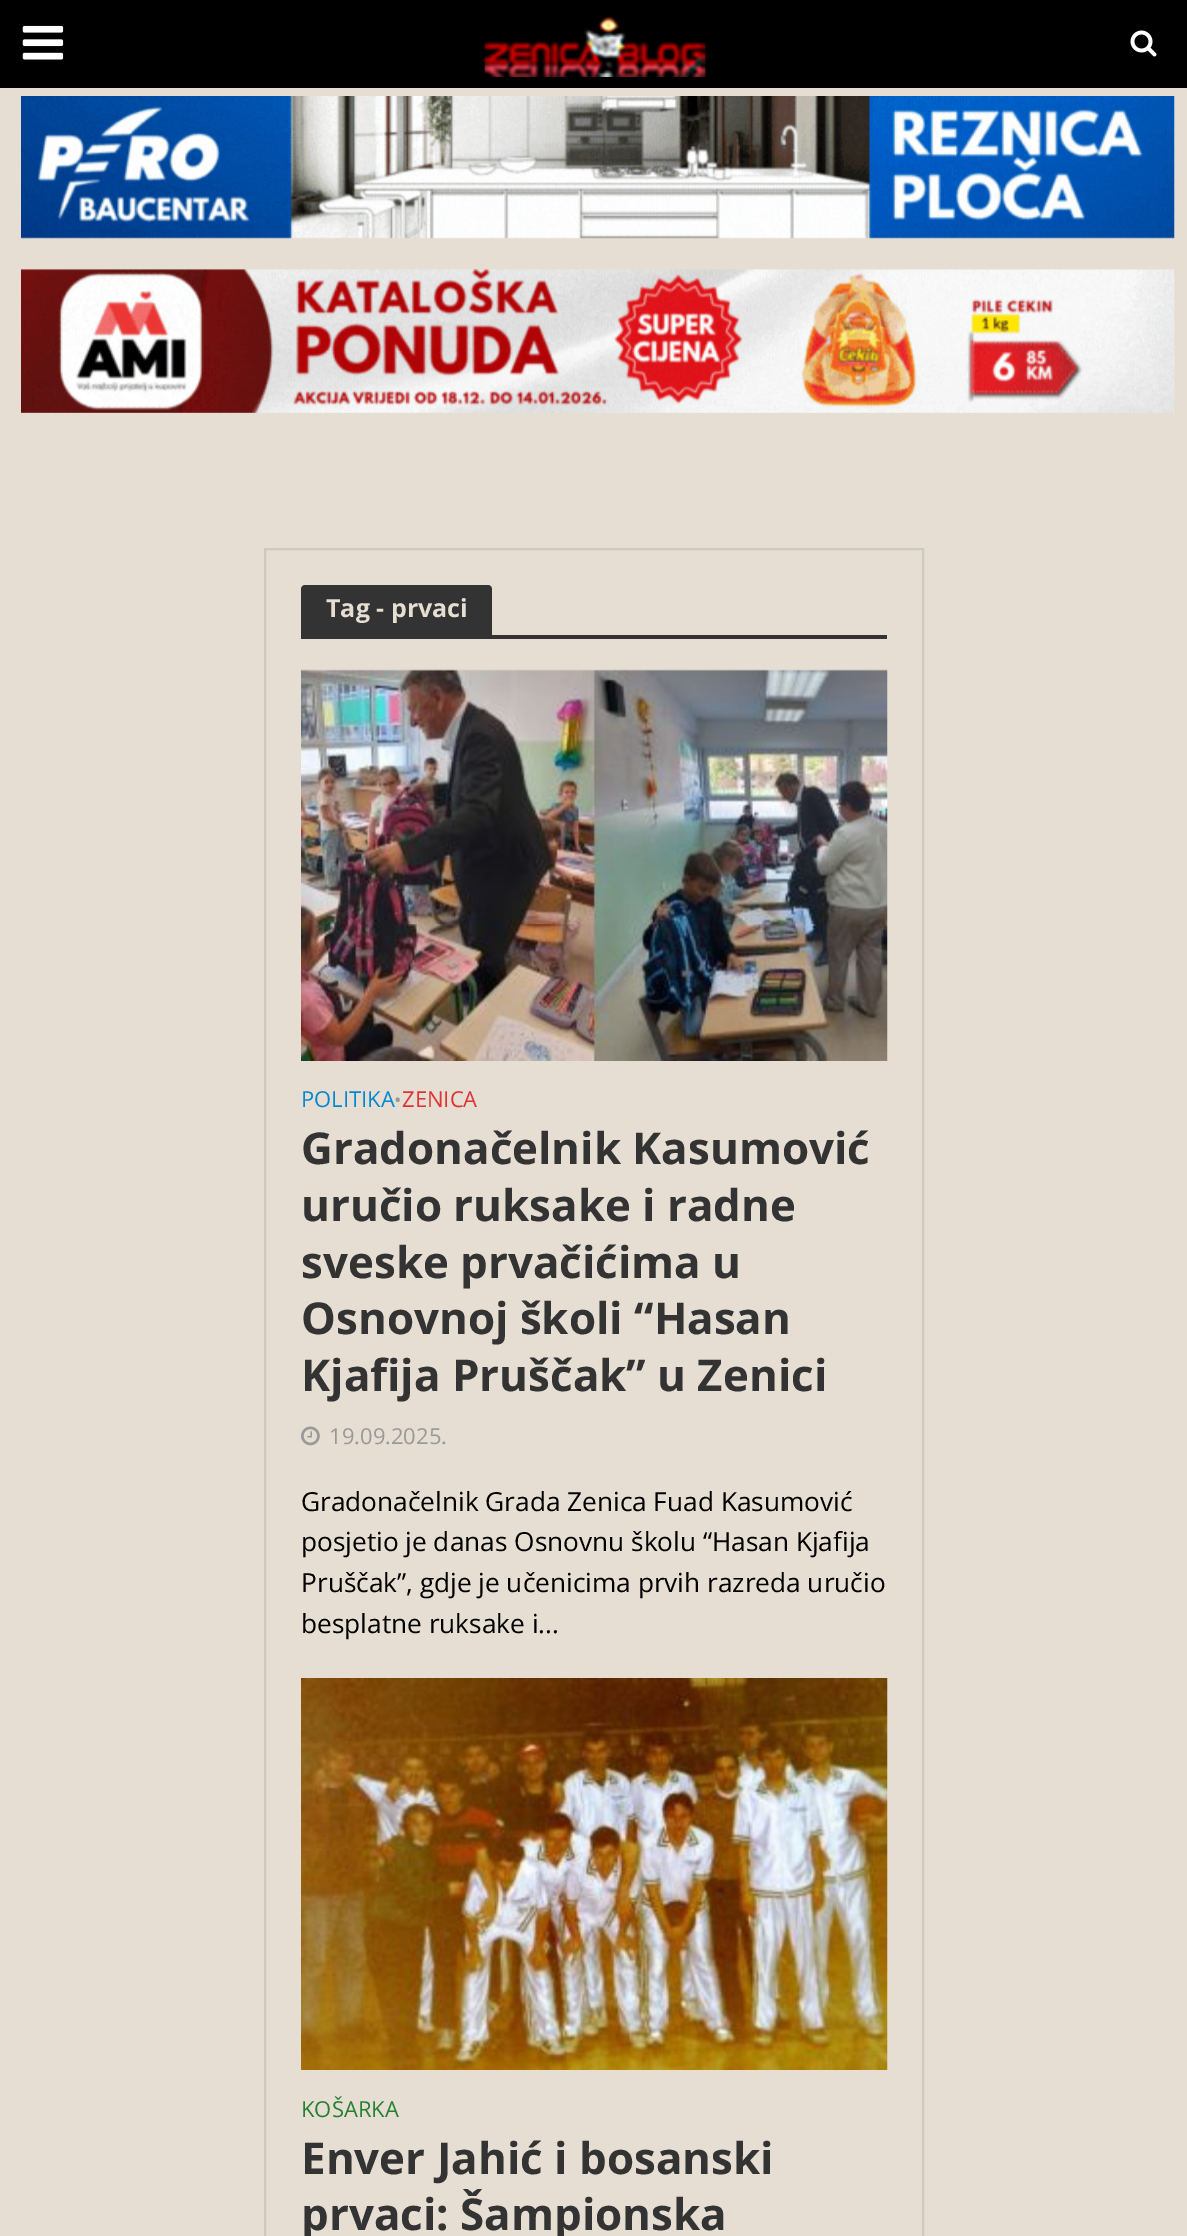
%!PS
<< /PageSize [1187 2236] >> setpagedevice
/rgb { 3 { 255 div 3 1 roll } repeat setrgbcolor } def
/font { [ exch dup neg 0 0 3 -1 roll 0 0 ] selectfont } def
/text { moveto show } def
/picture { 5 dict begin { /h /w /y /x /name } { exch def } forall
  gsave x y translate w h scale
  w h 8 [w 0 0 h 0 0] name (r) file false 3 colorimage grestore end } def
0 2236 translate 1 -1 scale
4 setmiterlimit
230 222 210 rgb
0 0 1187 2236 rectfill
0 0 0 rgb
0 0 1187 88 rectfill
(img_01.rgb) 22 25 42 35 picture
(img_02.rgb) 484 17 222 60 picture
(img_03.rgb) 1130 30 27 27 picture
(img_04.rgb) 21 96 1154 143 picture
(img_05.rgb) 21 269 1154 144 picture
207 200 189 rgb
2 setlinewidth
265 549 658 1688 rectstroke
51 51 51 rgb
305 585 moveto 183 0 rlineto 2 0 4 2 4 4 rcurveto 0 46 rlineto -191 0 rlineto 0 -46 rlineto 0 -2 2 -4 4 -4 rcurveto closepath fill
301 635 586 4 rectfill
219 212 199 rgb
301 670 586 1 rectfill
(img_06.rgb) 301 669 587 392 picture
(img_07.rgb) 301 1426 19 20 picture
(img_08.rgb) 301 1678 587 392 picture
/OpenSans-Bold 25 font
230 222 210 rgb
(Tag - prvaci) 326 617 text
/OpenSans-Regular 22 font
2 136 209 rgb
(POLITIKA) 301 1107 text
/OpenSans-Regular 20 font
153 153 153 rgb
(•) 394 1107 text
/OpenSans-Regular 22 font
221 51 51 rgb
(ZENICA) 402 1107 text
/OpenSans-Bold 43.9 font
51 51 51 rgb
(Gradonačelnik Kasumović) 301 1164 text
(uručio ruksake i radne) 301 1221 text
(sveske prvačićima u) 301 1278 text
(Osnovnoj školi “Hasan) 301 1334 text
(Kjafija Pruščak” u Zenici) 301 1391 text
/OpenSans-Regular 22 font
153 153 153 rgb
(19.09.2025.) 329 1444 text
/OpenSans-Regular 26.25 font
0 0 0 rgb
(Gradonačelnik Grada Zenica Fuad Kasumović) 301 1511 text
(posjetio je danas Osnovnu školu “Hasan Kjafija) 301 1551 text
(Pruščak”, gdje je učenicima prvih razreda uručio) 301 1592 text
(besplatne ruksake i...) 301 1633 text
/OpenSans-Regular 22 font
38 127 51 rgb
(KOŠARKA) 301 2117 text
/OpenSans-Bold 43.9 font
51 51 51 rgb
(Enver Jahić i bosanski) 301 2174 text
(prvaci: Šampionska) 301 2230 text
showpage
